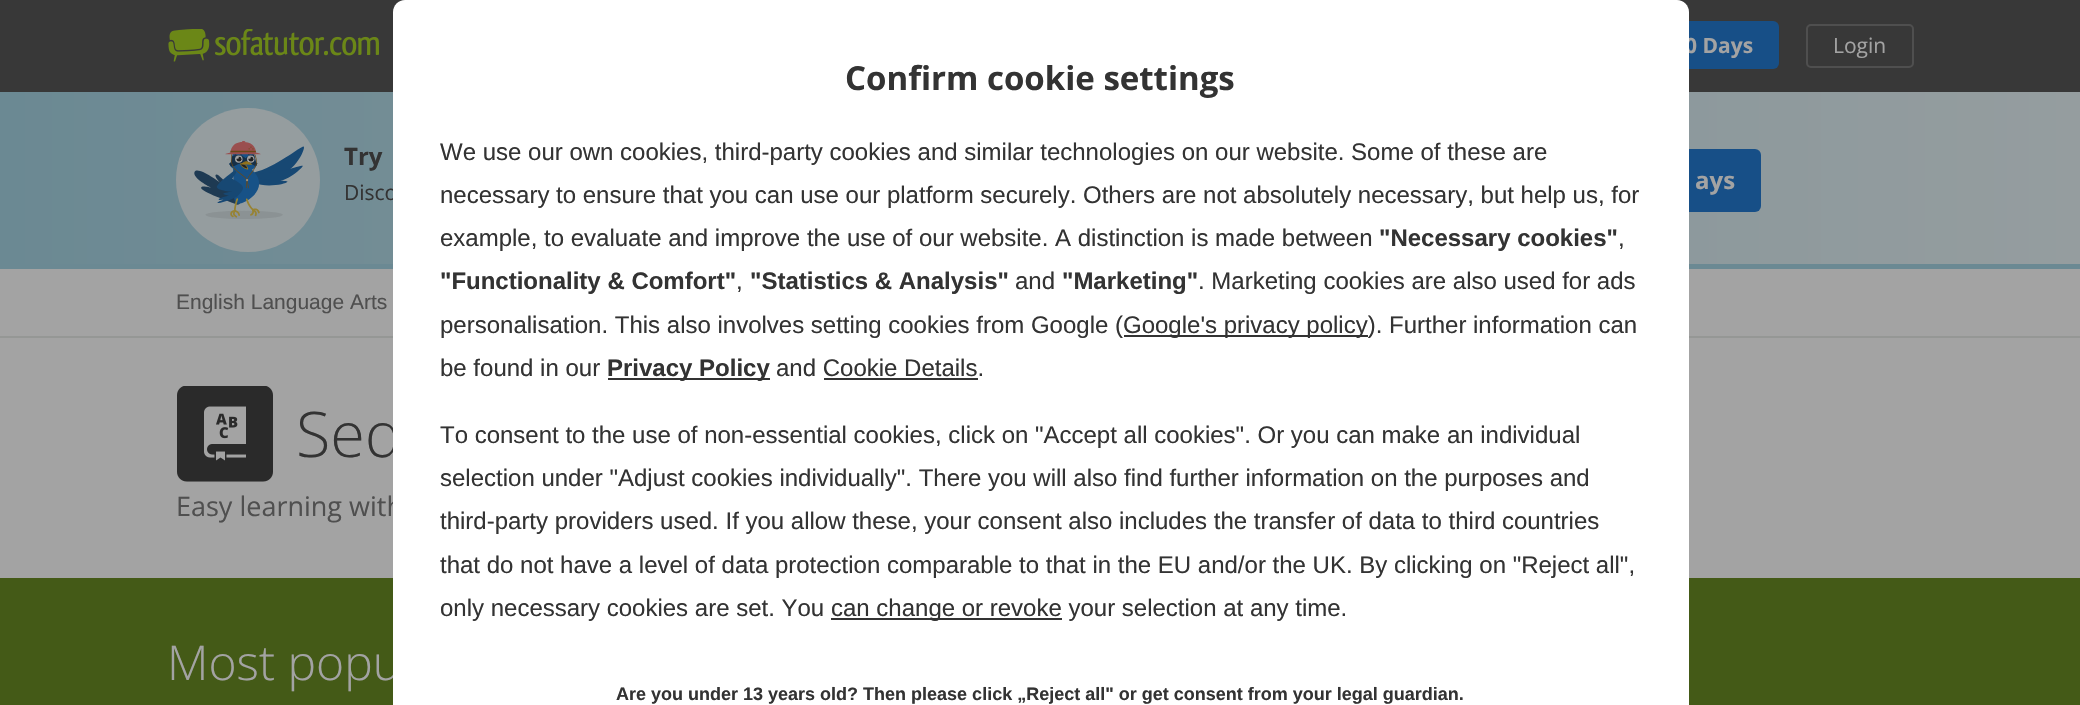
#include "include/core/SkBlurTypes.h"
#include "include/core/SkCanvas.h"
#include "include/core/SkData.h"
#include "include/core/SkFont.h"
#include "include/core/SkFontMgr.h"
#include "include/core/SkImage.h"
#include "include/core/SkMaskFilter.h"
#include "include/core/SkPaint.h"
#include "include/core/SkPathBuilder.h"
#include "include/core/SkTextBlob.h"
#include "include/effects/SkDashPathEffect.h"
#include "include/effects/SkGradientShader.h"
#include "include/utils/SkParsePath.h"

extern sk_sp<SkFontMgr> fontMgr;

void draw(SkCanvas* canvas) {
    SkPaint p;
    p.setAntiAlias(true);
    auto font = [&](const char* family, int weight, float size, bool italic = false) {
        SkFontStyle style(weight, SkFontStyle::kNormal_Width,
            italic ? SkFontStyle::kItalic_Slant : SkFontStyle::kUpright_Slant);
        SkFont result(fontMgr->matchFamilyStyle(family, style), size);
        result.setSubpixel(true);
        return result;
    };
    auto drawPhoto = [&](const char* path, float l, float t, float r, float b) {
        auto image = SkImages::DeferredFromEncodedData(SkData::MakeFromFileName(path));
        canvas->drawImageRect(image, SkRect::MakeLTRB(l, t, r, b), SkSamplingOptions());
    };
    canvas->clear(0xFFA3A3A3);
    p.setColor(0xFF383838);
    canvas->drawRect(SkRect::MakeLTRB(0, 0, 2080, 92), p);
    drawPhoto("media/1.png", 168, 29, 379, 62);
    p.setColor(0xFF174F87);
    canvas->drawRoundRect(SkRect::MakeLTRB(1469, 21, 1779, 69), 6, 6, p);
    auto font1 = font("Open Sans", 700, 21);
    p.setColor(0xFFA3A3A3);
    canvas->drawString("0 Days", 1685, 53, font1, p);
    p.setStyle(SkPaint::kStroke_Style);
    p.setStrokeWidth(2);
    p.setColor(0xFF4F4F4F);
    canvas->drawRoundRect(SkRect::MakeLTRB(1807, 25, 1913, 67), 4, 4, p);
    auto font2 = font("Open Sans", 400, 21);
    p.setStyle(SkPaint::kFill_Style);
    p.setColor(0xFFA3A3A3);
    canvas->drawString("Login", 1833, 53, font2, p);
    {
        const SkColor colors[] = {0xFF959D9F, 0xFF6B8993};
        const float stops[] = {0, 1};
        const SkPoint ends[] = {{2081, 177}, {0, 177}};
        p.setShader(SkGradientShader::MakeLinear(ends, colors, stops, 2, SkTileMode::kClamp));
        p.setAlpha(255);
    }
    canvas->drawRect(SkRect::MakeLTRB(0, 92, 2080, 264), p);
    p.setShader(nullptr);
    p.setColor(0xFF6B8993);
    canvas->drawRect(SkRect::MakeLTRB(0, 264, 2080, 269), p);
    p.setColor(0xFF333333);
    canvas->drawString("Disco", 344, 200, font2, p);
    p.setColor(0xFF174F87);
    canvas->drawRoundRect(SkRect::MakeLTRB(1509, 149, 1761, 212), 6, 6, p);
    p.setColor(0xFF959795);
    canvas->drawRect(SkRect::MakeLTRB(0, 336, 2080, 338), p);
    auto font3 = font("Open Sans", 300, 63);
    p.setColor(0xFF333333);
    canvas->drawString("Seq", 296, 457, font3, p);
    auto font4 = font("Open Sans", 400, 27);
    p.setColor(0xFF4F4F4F);
    canvas->drawString("Easy learning with", 176, 516, font4, p);
    p.setColor(0xFF445A17);
    canvas->drawRect(SkRect::MakeLTRB(0, 578, 2080, 705), p);
    auto font5 = font("Open Sans", 300, 48);
    p.setColor(0xFFA3A3A3);
    canvas->drawString("Most popu", 167, 680, font5, p);
    p.setColor(0xFFFFFFFF);
    canvas->drawPath(SkPathBuilder().moveTo(405, 0).lineTo(1677, 0).cubicTo(1683.5f, 0, 1689, 5.5f, 1689, 12).lineTo(1689, 705).lineTo(393, 705).lineTo(393, 12).cubicTo(393, 5.5f, 398.5f, 0, 405, 0).close().detach(), p);
    auto font6 = font("Open Sans", 700, 33);
    p.setColor(0xFF333333);
    canvas->drawString("Confirm cookie settings", 845, 90, font6, p);
    auto font7 = font("Liberation Sans", 400, 24);
    {
        const struct { const char* s; float x, y; } items[] = {
            {"We use our own cookies, third-party cookies and similar technologies on our website. Some of these are", 440, 160},
            {"necessary to ensure that you can use our platform securely. Others are not absolutely necessary, but help us, for", 440, 203},
            {"example, to evaluate and improve the use of our website. A distinction is made between", 440, 246},
        };
        for (auto [s, x, y] : items) {
            canvas->drawString(s, x, y, font7, p);
        }
    }
    auto font8 = font("Liberation Sans", 700, 24);
    canvas->drawString("\"Necessary cookies\"", 1379, 246, font8, p);
    canvas->drawString(",", 1618, 246, font7, p);
    canvas->drawString("\"Functionality & Comfort\"", 440, 289, font8, p);
    canvas->drawString(",", 736, 289, font7, p);
    canvas->drawString("\"Statistics & Analysis\"", 750, 289, font8, p);
    canvas->drawString("and", 1015, 289, font7, p);
    canvas->drawString("\"Marketing\"", 1062, 289, font8, p);
    canvas->drawString(". Marketing cookies are also used for ads", 1198, 289, font7, p);
    canvas->drawString("personalisation. This also involves setting cookies from Google (", 440, 333, font7, p);
    canvas->drawRect(SkRect::MakeLTRB(1124, 335, 1368, 337), p);
    canvas->drawString("Google's privacy policy). Further information can", 1123, 333, font7, p);
    canvas->drawString("be found in our", 440, 376, font7, p);
    canvas->drawRect(SkRect::MakeLTRB(608, 378, 770, 380), p);
    canvas->drawString("Privacy Policy", 607, 376, font8, p);
    canvas->drawString("and Cookie Details.", 776, 376, font7, p);
    canvas->drawRect(SkRect::MakeLTRB(824, 378, 978, 380), p);
    {
        const struct { const char* s; float x, y; } items[] = {
            {"To consent to the use of non-essential cookies, click on \"Accept all cookies\". Or you can make an individual", 440, 443},
            {"selection under \"Adjust cookies individually\". There you will also find further information on the purposes and", 440, 486},
            {"third-party providers used. If you allow these, your consent also includes the transfer of data to third countries", 440, 529},
            {"that do not have a level of data protection comparable to that in the EU and/or the UK. By clicking on \"Reject all\",", 440, 573},
            {"only necessary cookies are set. You", 440, 616},
        };
        for (auto [s, x, y] : items) {
            canvas->drawString(s, x, y, font7, p);
        }
    }
    canvas->drawRect(SkRect::MakeLTRB(831, 618, 1062, 620), p);
    canvas->drawString("can change or revoke your selection at any time.", 831, 616, font7, p);
    auto font9 = font("Liberation Sans", 700, 18);
    canvas->drawString("Are you under 13 years old? Then please click „Reject all\" or get consent from your legal guardian.", 616, 700, font9, p);
    p.setColor(0xFF959D9F);
    canvas->drawPath(SkPathBuilder().moveTo(248, 108).cubicTo(208, 108, 176, 140, 176, 180).cubicTo(176, 220, 208, 252, 248, 252).cubicTo(288, 252, 320, 220, 320, 180).cubicTo(320, 140, 288, 108, 248, 108).close().detach(), p);
    drawPhoto("media/2.png", 194, 141, 304, 219);
    auto font10 = font("Open Sans", 700, 24);
    p.setColor(0xFF333333);
    canvas->drawString("Try", 344, 165, font10, p);
    p.setColor(0xFFA3A3A3);
    canvas->drawString("ays", 1695, 189, font10, p);
    auto font11 = font("Liberation Sans", 400, 21);
    p.setColor(0xFF4F4F4F);
    canvas->drawString("English Language Arts", 176, 309, font11, p);
    drawPhoto("media/3.png", 177, 386, 273, 482);
}
